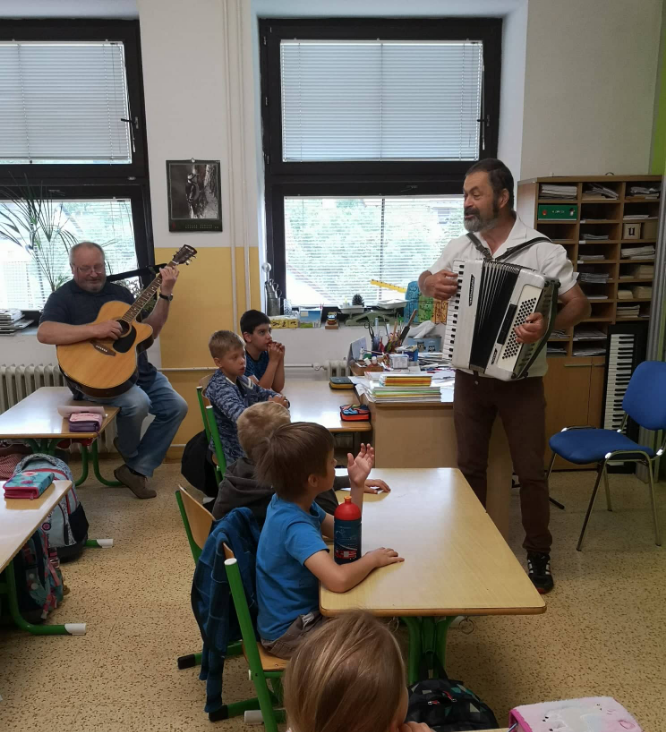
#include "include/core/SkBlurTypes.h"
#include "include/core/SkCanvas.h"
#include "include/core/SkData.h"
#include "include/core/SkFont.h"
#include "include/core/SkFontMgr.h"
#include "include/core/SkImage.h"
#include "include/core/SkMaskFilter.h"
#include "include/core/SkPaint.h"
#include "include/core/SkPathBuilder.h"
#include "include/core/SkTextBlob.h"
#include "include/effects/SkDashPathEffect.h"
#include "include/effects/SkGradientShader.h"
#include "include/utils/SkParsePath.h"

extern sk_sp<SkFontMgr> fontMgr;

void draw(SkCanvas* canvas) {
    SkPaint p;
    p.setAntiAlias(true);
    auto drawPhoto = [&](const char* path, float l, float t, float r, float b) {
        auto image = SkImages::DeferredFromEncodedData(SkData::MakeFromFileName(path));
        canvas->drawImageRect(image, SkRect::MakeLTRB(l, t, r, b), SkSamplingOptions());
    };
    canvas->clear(0xFFFFFFFF);
    drawPhoto("media/1.png", 0, 0, 666, 732);
}
